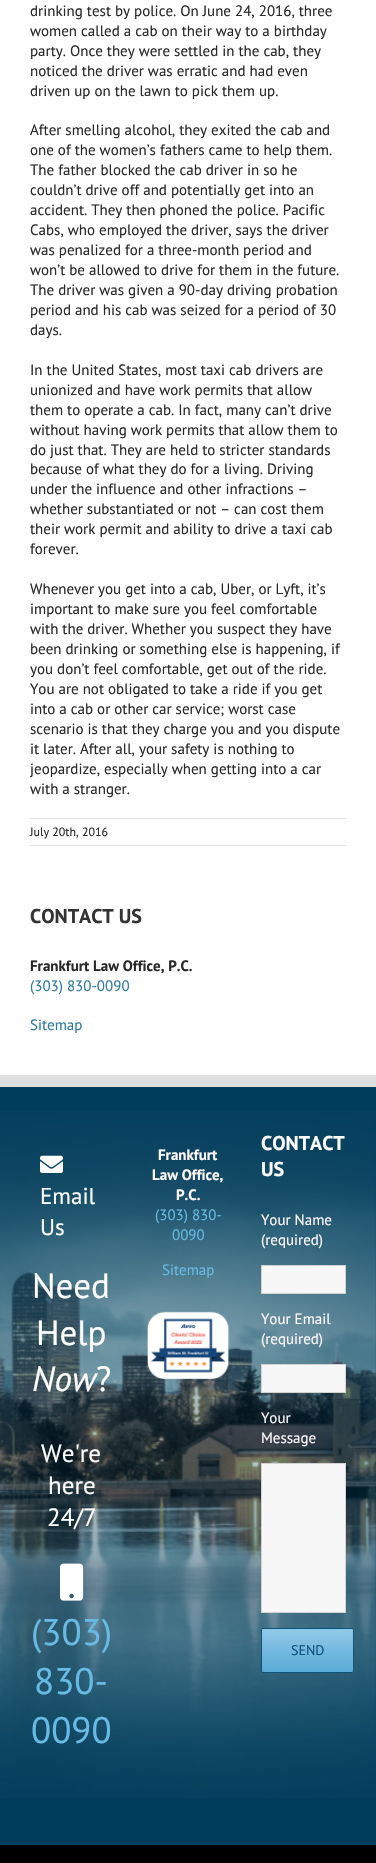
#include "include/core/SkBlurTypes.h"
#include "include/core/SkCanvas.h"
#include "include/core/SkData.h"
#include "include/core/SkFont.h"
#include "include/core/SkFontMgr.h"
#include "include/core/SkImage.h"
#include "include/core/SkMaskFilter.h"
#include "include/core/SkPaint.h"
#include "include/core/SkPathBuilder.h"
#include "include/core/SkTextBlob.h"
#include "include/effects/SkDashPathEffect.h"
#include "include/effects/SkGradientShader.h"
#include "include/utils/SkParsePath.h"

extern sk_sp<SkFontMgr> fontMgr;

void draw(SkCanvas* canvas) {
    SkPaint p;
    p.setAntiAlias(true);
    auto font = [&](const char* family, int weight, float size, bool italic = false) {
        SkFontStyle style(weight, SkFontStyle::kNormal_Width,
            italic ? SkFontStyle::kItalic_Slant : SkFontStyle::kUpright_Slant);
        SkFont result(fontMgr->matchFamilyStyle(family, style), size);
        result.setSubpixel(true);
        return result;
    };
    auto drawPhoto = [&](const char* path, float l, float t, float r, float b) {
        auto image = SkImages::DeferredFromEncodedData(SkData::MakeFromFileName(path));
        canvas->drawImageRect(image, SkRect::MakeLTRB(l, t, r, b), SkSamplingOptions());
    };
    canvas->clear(0xFFFFFFFF);
    auto font1 = font("PT Sans", 400, 15);
    p.setColor(0xFF282828);
    {
        const struct { const char* s; float x, y; } items[] = {
            {"drinking test by police. On June 24, 2016, three", 30, 16},
            {"women called a cab on their way to a birthday", 30, 36},
            {"party. Once they were settled in the cab, they", 30, 56},
            {"noticed the driver was erratic and had even", 30, 76},
            {"driven up on the lawn to pick them up.", 30, 96},
            {"After smelling alcohol, they exited the cab and", 30, 135},
            {"one of the women’s fathers came to help them.", 30, 155},
            {"The father blocked the cab driver in so he", 30, 175},
            {"couldn’t drive off and potentially get into an", 30, 195},
            {"accident. They then phoned the police. Pacific", 30, 215},
            {"Cabs, who employed the driver, says the driver", 30, 235},
            {"was penalized for a three-month period and", 30, 255},
            {"won’t be allowed to drive for them in the future.", 30, 275},
            {"The driver was given a 90-day driving probation", 30, 295},
            {"period and his cab was seized for a period of 30", 30, 315},
            {"days.", 30, 335},
            {"In the United States, most taxi cab drivers are", 30, 375},
            {"unionized and have work permits that allow", 30, 395},
            {"them to operate a cab. In fact, many can’t drive", 30, 415},
            {"without having work permits that allow them to", 30, 435},
            {"do just that. They are held to stricter standards", 30, 455},
            {"because of what they do for a living. Driving", 30, 474},
            {"under the influence and other infractions –", 30, 494},
            {"whether substantiated or not – can cost them", 30, 514},
            {"their work permit and ability to drive a taxi cab", 30, 534},
            {"forever.", 30, 554},
            {"Whenever you get into a cab, Uber, or Lyft, it’s", 30, 594},
            {"important to make sure you feel comfortable", 30, 614},
            {"with the driver. Whether you suspect they have", 30, 634},
            {"been drinking or something else is happening, if", 30, 654},
            {"you don’t feel comfortable, get out of the ride.", 30, 674},
            {"You are not obligated to take a ride if you get", 30, 694},
            {"into a cab or other car service; worst case", 30, 714},
            {"scenario is that they charge you and you dispute", 30, 734},
            {"it later. After all, your safety is nothing to", 30, 754},
            {"jeopardize, especially when getting into a car", 30, 774},
            {"with a stranger.", 30, 794},
        };
        for (auto [s, x, y] : items) {
            canvas->drawString(s, x, y, font1, p);
        }
    }
    p.setColor(0xFFE0DEDE);
    canvas->drawRect(SkRect::MakeLTRB(30, 818, 346, 819), p);
    canvas->drawRect(SkRect::MakeLTRB(30, 845, 346, 846), p);
    auto font2 = font("PT Sans", 400, 12);
    p.setColor(0xFF282828);
    canvas->drawString("July 20th, 2016", 30, 836, font2, p);
    auto font3 = font("PT Sans", 700, 20);
    p.setColor(0xFF333333);
    canvas->drawString("CONTACT US", 30, 923, font3, p);
    auto font4 = font("PT Sans", 700, 15);
    p.setColor(0xFF282828);
    canvas->drawString("Frankfurt Law Office, P.C.", 30, 971, font4, p);
    p.setColor(0xFF2C7AA0);
    canvas->drawString("(303) 830-0090", 30, 991, font1, p);
    canvas->drawString("Sitemap", 30, 1030, font1, p);
    p.setColor(0xFF003D5C);
    canvas->drawRect(SkRect::MakeLTRB(0, 1087, 376, 1845), p);
    drawPhoto("media/1.png", 0, 1111, 376, 1798);
    p.setColor(0xFFE0E0E0);
    canvas->drawRect(SkRect::MakeLTRB(0, 1075, 376, 1087), p);
    drawPhoto("media/2.png", 40, 1155, 63, 1173);
    auto font5 = font("PT Sans", 400, 23);
    p.setColor(0xFFFFFFFF);
    canvas->drawString("Email", 40, 1204, font5, p);
    canvas->drawString("Us", 40, 1235, font5, p);
    auto font6 = font("PT Sans", 400, 35);
    canvas->drawString("Need", 32, 1298, font6, p);
    canvas->drawString("Help", 36, 1345, font6, p);
    auto font7 = font("PT Sans", 400, 35, true);
    canvas->drawString("Now", 32, 1391, font7, p);
    canvas->drawString("?", 96, 1391, font6, p);
    auto font8 = font("PT Sans", 400, 25);
    {
        const struct { const char* s; float x, y; } items[] = {
            {"We're", 41, 1462},
            {"here", 48, 1494},
            {"24/7", 47, 1526},
        };
        for (auto [s, x, y] : items) {
            canvas->drawString(s, x, y, font8, p);
        }
    }
    drawPhoto("media/3.png", 60, 1563, 84, 1601);
    auto font9 = font("PT Sans", 400, 37);
    p.setColor(0xFF67BAE4);
    {
        const struct { const char* s; float x, y; } items[] = {
            {"(303)", 31, 1645},
            {"830-", 34, 1694},
            {"0090", 31, 1743},
        };
        for (auto [s, x, y] : items) {
            canvas->drawString(s, x, y, font9, p);
        }
    }
    p.setColor(0xFFFFF9FB);
    {
        const struct { const char* s; float x, y; } items[] = {
            {"Frankfurt", 158, 1160},
            {"Law Office,", 152, 1180},
            {"P.C.", 176, 1200},
        };
        for (auto [s, x, y] : items) {
            canvas->drawString(s, x, y, font4, p);
        }
    }
    p.setColor(0xFF67BAE4);
    {
        const struct { const char* s; float x, y; } items[] = {
            {"(303) 830-", 155, 1220},
            {"0090", 172, 1240},
            {"Sitemap", 162, 1275},
        };
        for (auto [s, x, y] : items) {
            canvas->drawString(s, x, y, font1, p);
        }
    }
    drawPhoto("media/4.png", 147, 1311, 230, 1380);
    p.setColor(0xFFFFFFFF);
    canvas->drawString("CONTACT", 261, 1150, font3, p);
    canvas->drawString("US", 261, 1176, font3, p);
    p.setColor(0xFFFFF9FB);
    canvas->drawString("Your Name", 261, 1225, font1, p);
    canvas->drawString("(required)", 261, 1245, font1, p);
    p.setColor(0xFFF7F7F7);
    canvas->drawRect(SkRect::MakeLTRB(261.5f, 1265.5f, 345.5f, 1293.5f), p);
    p.setStyle(SkPaint::kStroke_Style);
    p.setStrokeWidth(1);
    p.setColor(0xFFD2D2D2);
    canvas->drawRect(SkRect::MakeLTRB(261.5f, 1265.5f, 345.5f, 1293.5f), p);
    p.setStyle(SkPaint::kFill_Style);
    p.setColor(0xFFFFF9FB);
    canvas->drawString("Your Email", 261, 1324, font1, p);
    canvas->drawString("(required)", 261, 1344, font1, p);
    p.setColor(0xFFF7F7F7);
    canvas->drawRect(SkRect::MakeLTRB(261.5f, 1364.5f, 345.5f, 1392.5f), p);
    p.setStyle(SkPaint::kStroke_Style);
    p.setColor(0xFFD2D2D2);
    canvas->drawRect(SkRect::MakeLTRB(261.5f, 1364.5f, 345.5f, 1392.5f), p);
    p.setStyle(SkPaint::kFill_Style);
    p.setColor(0xFFFFF9FB);
    canvas->drawString("Your", 261, 1423, font1, p);
    canvas->drawString("Message", 261, 1443, font1, p);
    p.setColor(0xFFF7F7F7);
    canvas->drawRect(SkRect::MakeLTRB(261.5f, 1463.5f, 345.5f, 1612.5f), p);
    p.setStyle(SkPaint::kStroke_Style);
    p.setColor(0xFFD2D2D2);
    canvas->drawRect(SkRect::MakeLTRB(261.5f, 1463.5f, 345.5f, 1612.5f), p);
    canvas->save();
    canvas->clipPath(SkPathBuilder().moveTo(263, 1628).lineTo(352, 1628).cubicTo(353, 1628, 354, 1629, 354, 1630).lineTo(354, 1671).cubicTo(354, 1672, 353, 1673, 352, 1673).lineTo(263, 1673).cubicTo(262, 1673, 261, 1672, 261, 1671).lineTo(261, 1630).cubicTo(261, 1629, 262, 1628, 263, 1628).close().detach(), true);
    p.setStyle(SkPaint::kFill_Style);
    {
        const SkColor colors[] = {0xFF90C9E8, 0xFF5AABD6};
        const float stops[] = {0, 1};
        const SkPoint ends[] = {{308, 1629}, {308, 1672}};
        p.setShader(SkGradientShader::MakeLinear(ends, colors, stops, 2, SkTileMode::kClamp));
        p.setAlpha(255);
    }
    canvas->drawRect(SkRect::MakeLTRB(261, 1629, 354, 1672), p);
    canvas->restore();
    p.setStyle(SkPaint::kStroke_Style);
    p.setShader(nullptr);
    p.setColor(0xFF105378);
    canvas->drawRoundRect(SkRect::MakeLTRB(261.5f, 1628.5f, 353.5f, 1672.5f), 1.5f, 1.5f, p);
    auto font10 = font("PT Sans", 400, 14);
    p.setStyle(SkPaint::kFill_Style);
    canvas->drawString("SEND", 291, 1655, font10, p);
    p.setColor(0xFF000000);
    canvas->drawRect(SkRect::MakeLTRB(0, 1845, 376, 1863), p);
}
